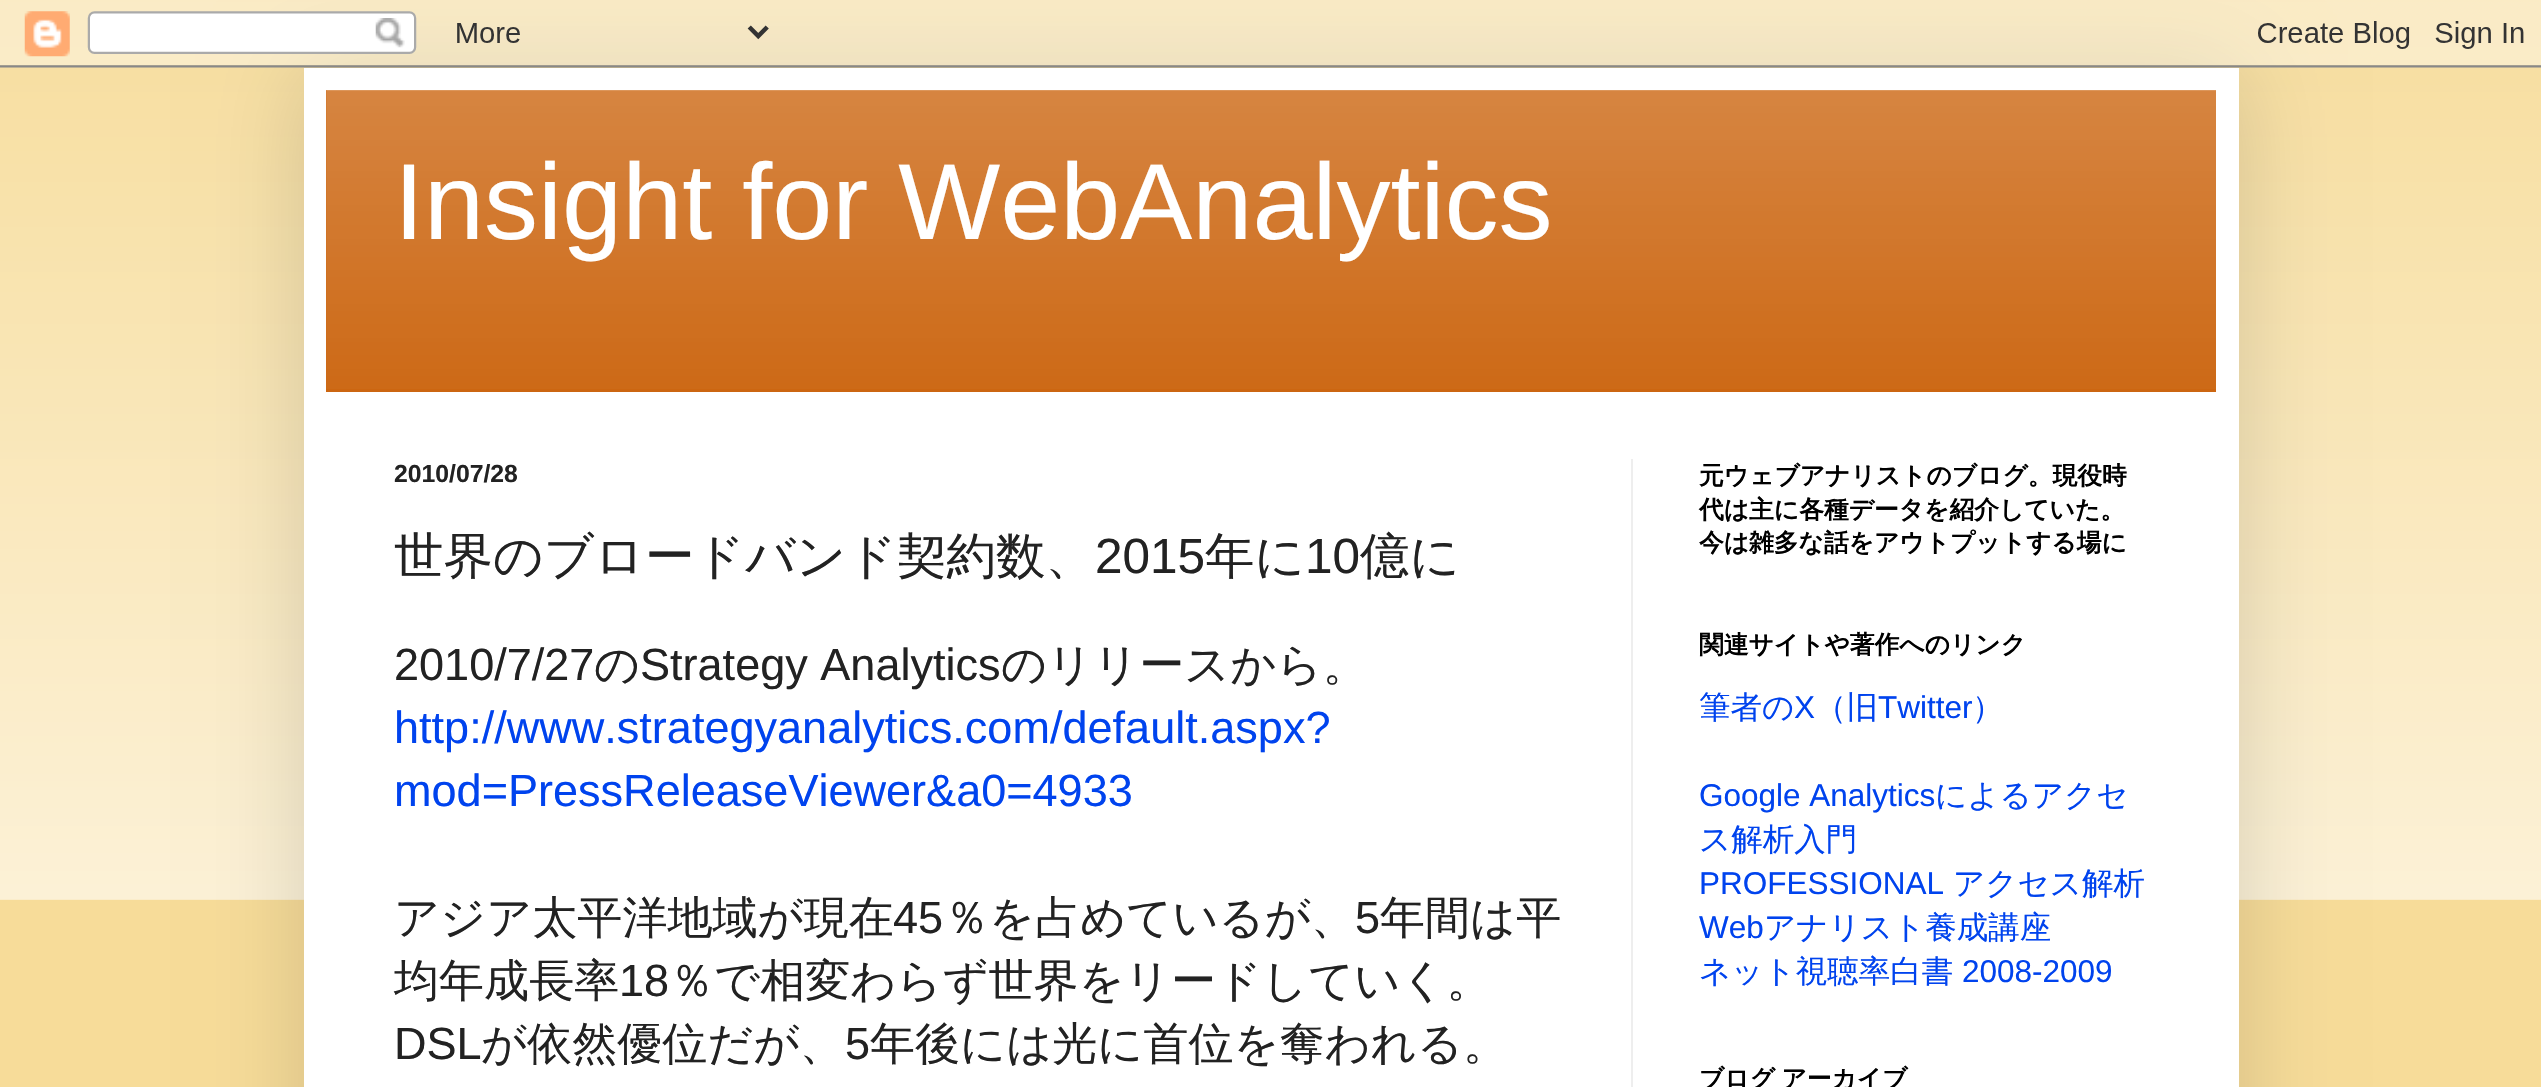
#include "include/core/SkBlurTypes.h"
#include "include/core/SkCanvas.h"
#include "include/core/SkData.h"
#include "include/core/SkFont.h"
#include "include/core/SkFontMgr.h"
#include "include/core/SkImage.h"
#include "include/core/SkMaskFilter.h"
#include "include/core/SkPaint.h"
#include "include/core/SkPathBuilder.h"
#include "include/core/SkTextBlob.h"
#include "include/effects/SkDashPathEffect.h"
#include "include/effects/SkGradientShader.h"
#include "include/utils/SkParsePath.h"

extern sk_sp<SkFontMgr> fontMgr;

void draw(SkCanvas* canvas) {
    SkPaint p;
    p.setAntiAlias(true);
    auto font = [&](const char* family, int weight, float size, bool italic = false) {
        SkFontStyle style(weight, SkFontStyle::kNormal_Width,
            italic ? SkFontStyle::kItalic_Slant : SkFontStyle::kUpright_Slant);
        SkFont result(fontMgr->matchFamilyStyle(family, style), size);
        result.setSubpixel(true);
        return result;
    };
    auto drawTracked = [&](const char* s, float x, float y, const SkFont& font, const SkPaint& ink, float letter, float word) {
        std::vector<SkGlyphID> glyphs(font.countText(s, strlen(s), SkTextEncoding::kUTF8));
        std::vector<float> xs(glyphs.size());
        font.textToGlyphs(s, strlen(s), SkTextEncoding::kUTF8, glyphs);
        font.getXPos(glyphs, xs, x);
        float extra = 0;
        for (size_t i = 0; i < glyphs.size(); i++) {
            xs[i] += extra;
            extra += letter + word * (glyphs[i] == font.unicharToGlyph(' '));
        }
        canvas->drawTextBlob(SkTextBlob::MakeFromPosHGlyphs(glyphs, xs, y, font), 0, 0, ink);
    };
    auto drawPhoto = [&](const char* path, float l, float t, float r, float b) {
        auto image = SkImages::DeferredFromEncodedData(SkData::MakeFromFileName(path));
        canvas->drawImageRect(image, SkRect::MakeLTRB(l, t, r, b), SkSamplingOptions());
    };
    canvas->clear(0xFFF7DC99);
    drawPhoto("media/1.png", 0, 0, 2541, 900);
    p.setColor(0x26000000);
    p.setMaskFilter(SkMaskFilter::MakeBlur(kNormal_SkBlurStyle, 45));
    canvas->drawRect(SkRect::MakeLTRB(304, 68, 2239, 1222), p);
    p.setMaskFilter(nullptr);
    drawPhoto("media/2.png", 0, 0, 2541, 68);
    p.setColor(0xFFFFFFFF);
    canvas->drawRect(SkRect::MakeLTRB(304, 68, 2239, 1087), p);
    p.setColor(0xFFCC6611);
    canvas->drawRect(SkRect::MakeLTRB(326, 90, 2216, 392), p);
    drawPhoto("media/3.png", 326, 90, 2216, 389);
    auto font1 = font("Liberation Sans", 400, 108);
    p.setColor(0xFFFFFFFF);
    canvas->drawString("Insight for WebAnalytics", 394, 239, font1, p);
    p.setColor(0xFFEEEEEE);
    canvas->drawRect(SkRect::MakeLTRB(1631, 459, 1633, 1087), p);
    auto font2 = font("Liberation Sans", 700, 24.75f);
    p.setColor(0xFF222222);
    canvas->drawString("2010/07/28", 394, 482, font2, p);
    auto font3 = font("WenQuanYi Zen Hei", 500, 49.5f);
    canvas->drawString("世界のブロードバンド契約数、", 394, 573, font3, p);
    auto font4 = font("Liberation Sans", 400, 49.5f);
    canvas->drawString("2015", 1095, 573, font4, p);
    canvas->drawString("年に", 1205, 573, font3, p);
    canvas->drawString("10", 1305, 573, font4, p);
    canvas->drawString("億に", 1360, 573, font3, p);
    auto font5 = font("Liberation Sans", 400, 45.05f);
    canvas->drawString("2010/7/27", 394, 680, font5, p);
    auto font6 = font("WenQuanYi Zen Hei", 500, 45.05f);
    canvas->drawString("の", 594, 680, font6, p);
    canvas->drawString("Strategy Analytics", 640, 680, font5, p);
    canvas->drawString("のリリースから。", 1001, 680, font6, p);
    p.setColor(0xFF0043EE);
    canvas->drawString("http://www.strategyanalytics.com/default.aspx?", 394, 743, font5, p);
    canvas->drawString("mod=PressReleaseViewer&a0=4933", 394, 806, font5, p);
    p.setColor(0xFF222222);
    canvas->drawString("アジア太平洋地域が現在", 394, 933, font6, p);
    canvas->drawString("45", 893, 933, font5, p);
    canvas->drawString("％を占めているが、", 944, 933, font6, p);
    canvas->drawString("5", 1355, 933, font5, p);
    canvas->drawString("年間は平", 1380, 933, font6, p);
    canvas->drawString("均年成長率", 394, 996, font6, p);
    canvas->drawString("18", 619, 996, font5, p);
    canvas->drawString("％で相変わらず世界をリードしていく。", 669, 996, font6, p);
    canvas->drawString("DSL", 394, 1059, font5, p);
    canvas->drawString("が依然優位だが、", 481, 1059, font6, p);
    canvas->drawString("5", 845, 1059, font5, p);
    canvas->drawString("年後には光に首位を奪われる。", 870, 1059, font6, p);
    auto font7 = font("WenQuanYi Zen Hei", 700, 24.75f);
    p.setColor(0xFF000000);
    {
        const struct { const char* s; float x, y; } items[] = {
            {"元ウェブアナリストのブログ。現役時", 1699, 484},
            {"代は主に各種データを紹介していた。", 1699, 518},
            {"今は雑多な話をアウトプットする場に", 1699, 551},
            {"関連サイトや著作へのリンク", 1699, 653},
        };
        for (auto [s, x, y] : items) {
            canvas->drawString(s, x, y, font7, p);
        }
    }
    auto font8 = font("WenQuanYi Zen Hei", 500, 31.5f);
    p.setColor(0xFF0043EE);
    canvas->drawString("筆者の", 1699, 718, font8, p);
    auto font9 = font("Liberation Sans", 400, 31.5f);
    canvas->drawString("X", 1794, 718, font9, p);
    canvas->drawString("（旧", 1815, 718, font8, p);
    canvas->drawString("Twitter", 1878, 718, font9, p);
    canvas->drawString("）", 1972, 718, font8, p);
    canvas->drawString("Google Analytics", 1699, 806, font9, p);
    canvas->drawString("によるアクセ", 1935, 806, font8, p);
    canvas->drawString("ス解析入門", 1699, 850, font8, p);
    canvas->drawString("PROFESSIONAL", 1699, 894, font9, p);
    canvas->drawString("アクセス解析", 1953, 894, font8, p);
    canvas->drawString("Web", 1699, 938, font9, p);
    canvas->drawString("アナリスト養成講座", 1764, 938, font8, p);
    canvas->drawString("ネット視聴率白書", 1699, 982, font8, p);
    canvas->drawString("2008-2009", 1962, 982, font9, p);
    p.setColor(0xFF000000);
    drawTracked("ブログ アーカイブ", 1699, 1087, font7, p, 0, -1);
}
